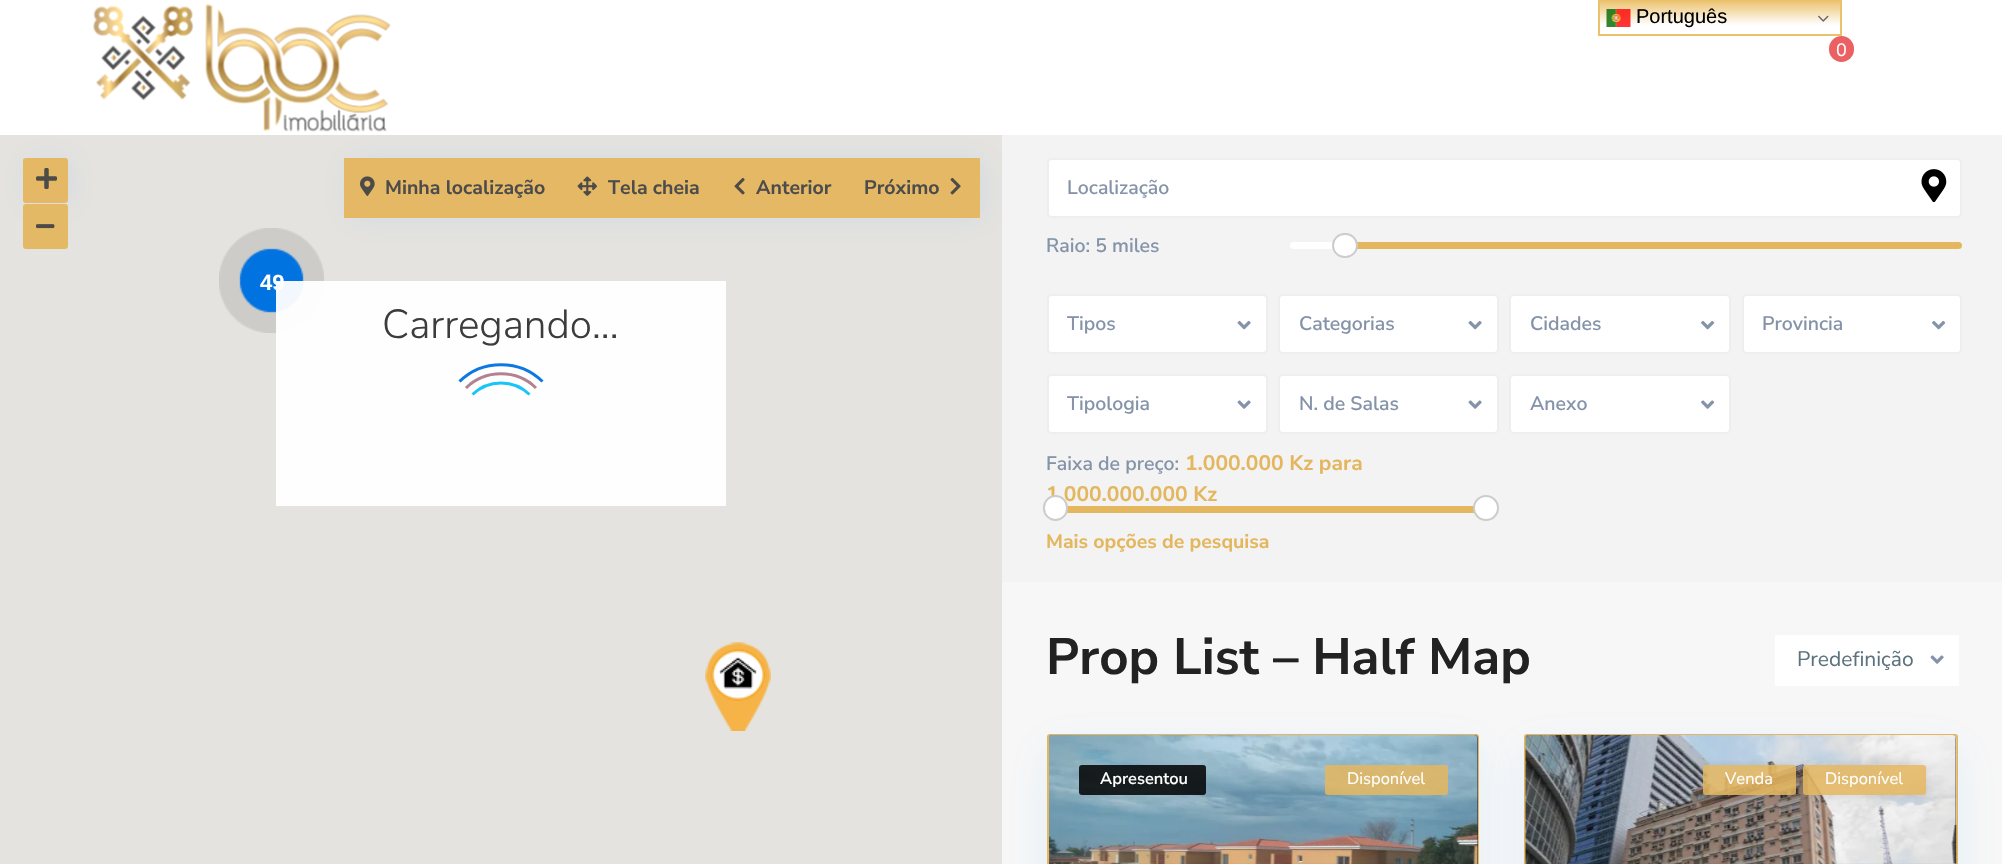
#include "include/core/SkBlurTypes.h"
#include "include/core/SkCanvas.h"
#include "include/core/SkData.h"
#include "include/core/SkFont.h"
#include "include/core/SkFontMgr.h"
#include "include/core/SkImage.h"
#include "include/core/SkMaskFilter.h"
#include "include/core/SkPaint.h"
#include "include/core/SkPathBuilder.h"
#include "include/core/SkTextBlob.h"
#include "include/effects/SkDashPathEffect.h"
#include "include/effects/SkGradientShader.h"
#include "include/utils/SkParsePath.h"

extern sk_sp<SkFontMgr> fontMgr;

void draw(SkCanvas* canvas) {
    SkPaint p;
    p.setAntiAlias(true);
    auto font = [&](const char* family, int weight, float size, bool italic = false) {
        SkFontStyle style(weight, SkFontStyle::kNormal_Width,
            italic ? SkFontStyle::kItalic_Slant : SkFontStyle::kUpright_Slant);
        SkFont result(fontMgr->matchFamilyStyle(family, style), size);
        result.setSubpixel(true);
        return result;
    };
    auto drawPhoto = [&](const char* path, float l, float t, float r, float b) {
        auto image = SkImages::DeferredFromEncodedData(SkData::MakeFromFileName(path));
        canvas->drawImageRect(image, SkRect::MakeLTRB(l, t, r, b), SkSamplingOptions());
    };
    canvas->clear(0xFFE5E3DF);
    p.setColor(0x14006EE1);
    p.setMaskFilter(SkMaskFilter::MakeBlur(kNormal_SkBlurStyle, 15));
    canvas->drawRoundRect(SkRect::MakeLTRB(27, 159, 72, 204), 3, 3, p);
    p.setMaskFilter(nullptr);
    drawPhoto("media/10.png", 219, 228, 324, 333);
    p.setMaskFilter(SkMaskFilter::MakeBlur(kNormal_SkBlurStyle, 15));
    canvas->drawRoundRect(SkRect::MakeLTRB(348, 159, 984, 219), 3, 3, p);
    p.setMaskFilter(nullptr);
    p.setColor(0xFFFFFFFF);
    canvas->drawRect(SkRect::MakeLTRB(0, 0, 2002, 135), p);
    {
        const SkColor colors[] = {0xFFEBC16B, 0xFFFFFFFF};
        const float stops[] = {0, 0.7f};
        const SkPoint ends[] = {{1720, 0}, {1720, 36}};
        p.setShader(SkGradientShader::MakeLinear(ends, colors, stops, 2, SkTileMode::kClamp));
        p.setAlpha(255);
    }
    canvas->drawRect(SkRect::MakeLTRB(1600, 2, 1840, 25), p);
    p.setStyle(SkPaint::kStroke_Style);
    p.setStrokeWidth(2);
    p.setShader(nullptr);
    p.setColor(0xFFEBC16B);
    canvas->drawRect(SkRect::MakeLTRB(1599, 1, 1841, 35), p);
    drawPhoto("media/1.png", 1606, 9, 1631, 27);
    auto font1 = font("Liberation Sans", 400, 20);
    p.setStyle(SkPaint::kFill_Style);
    p.setColor(0xFF000000);
    canvas->drawString("Português", 1636, 23, font1, p);
    drawPhoto("media/2.png", 1818, 15, 1829, 22);
    drawPhoto("media/3.png", 93, 3, 391, 132);
    p.setColor(0xFFEB6062);
    canvas->drawRoundRect(SkRect::MakeLTRB(1829, 36, 1854, 62), 12.5f, 12.5f, p);
    auto font2 = font("Nunito Sans", 400, 18);
    p.setColor(0xFFFFFFFF);
    canvas->drawString("0", 1836, 56, font2, p);
    p.setColor(0xFFE4B864);
    canvas->drawRoundRect(SkRect::MakeLTRB(23, 158, 68, 203), 3, 3, p);
    drawPhoto("media/4.png", 36, 168, 57, 189);
    canvas->drawRect(SkRect::MakeLTRB(344, 158, 980, 218), p);
    drawPhoto("media/5.png", 360, 176, 375, 196);
    auto font3 = font("Nunito Sans", 700, 19.5f);
    p.setColor(0xFF4C4C4C);
    canvas->drawString("Minha localização", 385, 194, font3, p);
    drawPhoto("media/6.png", 577, 176, 597, 196);
    canvas->drawString("Tela cheia", 608, 194, font3, p);
    drawPhoto("media/7.png", 734, 177, 745, 195);
    canvas->drawString("Anterior", 756, 194, font3, p);
    canvas->drawString("Próximo", 864, 194, font3, p);
    drawPhoto("media/8.png", 950, 177, 961, 195);
    p.setColor(0xF2E4B65E);
    canvas->drawRoundRect(SkRect::MakeLTRB(23, 204, 68, 249), 3, 3, p);
    drawPhoto("media/9.png", 36, 224, 55, 229);
    auto font4 = font("Liberation Sans", 700, 22);
    p.setColor(0xFFFFFFFF);
    canvas->drawString("49", 260, 290, font4, p);
    drawPhoto("media/11.png", 705, 642, 771, 731);
    p.setColor(0xF2FFFFFF);
    canvas->drawRect(SkRect::MakeLTRB(276, 281, 726, 506), p);
    auto font5 = font("Nunito Sans", 300, 40.5f);
    p.setColor(0xFF3C3C3C);
    canvas->drawString("Carregando...", 382, 338, font5, p);
    p.setStyle(SkPaint::kStroke_Style);
    p.setStrokeWidth(3);
    p.setColor(0xFF0B79E1);
    canvas->drawPath(SkPathBuilder().moveTo(459.5f, 381.5f).cubicTo(482, 359, 520, 359, 542.5f, 381.5f).detach(), p);
    p.setColor(0xFFB38290);
    canvas->drawPath(SkPathBuilder().moveTo(466, 388).cubicTo(485, 369, 517, 369, 536, 388).detach(), p);
    p.setColor(0xFF18C5F7);
    canvas->drawPath(SkPathBuilder().moveTo(472.5f, 394.5f).cubicTo(488, 379, 514, 379, 529.5f, 394.5f).detach(), p);
    p.setStyle(SkPaint::kFill_Style);
    p.setColor(0xFFF7F7F7);
    canvas->drawRect(SkRect::MakeLTRB(1002, 582, 2002, 864), p);
    p.setColor(0xFFF3F3F3);
    canvas->drawRect(SkRect::MakeLTRB(1002, 135, 2002, 582), p);
    p.setColor(0xFFFFFFFF);
    canvas->drawRoundRect(SkRect::MakeLTRB(1048, 159, 1961, 217), 4, 4, p);
    p.setStyle(SkPaint::kStroke_Style);
    p.setStrokeWidth(2);
    p.setColor(0xFFEEEEEE);
    canvas->drawRoundRect(SkRect::MakeLTRB(1048, 159, 1961, 217), 4, 4, p);
    auto font6 = font("Nunito Sans", 600, 19.5f);
    p.setStyle(SkPaint::kFill_Style);
    p.setColor(0xFF8593A9);
    canvas->drawString("Localização", 1067, 194, font6, p);
    drawPhoto("media/12.png", 1921, 169, 1947, 203);
    canvas->drawString("Raio: 5 miles", 1046, 252, font6, p);
    p.setColor(0xFFFFFFFF);
    canvas->drawRoundRect(SkRect::MakeLTRB(1290, 242, 1962, 249), 3.5f, 3.5f, p);
    p.setColor(0xFFE4B65E);
    canvas->drawRoundRect(SkRect::MakeLTRB(1344, 242, 1962, 249), 3.5f, 3.5f, p);
    p.setColor(0xFFFFFFFF);
    canvas->drawRoundRect(SkRect::MakeLTRB(1333, 234, 1357, 257), 11.5f, 11.5f, p);
    p.setStyle(SkPaint::kStroke_Style);
    p.setColor(0xFFCCCCCC);
    canvas->drawRoundRect(SkRect::MakeLTRB(1333, 234, 1357, 257), 11.5f, 11.5f, p);
    p.setStyle(SkPaint::kFill_Style);
    p.setColor(0xFFFFFFFF);
    canvas->drawRoundRect(SkRect::MakeLTRB(1048, 295, 1267, 353), 4, 4, p);
    p.setStyle(SkPaint::kStroke_Style);
    p.setColor(0xFFEEEEEE);
    canvas->drawRoundRect(SkRect::MakeLTRB(1048, 295, 1267, 353), 4, 4, p);
    p.setStyle(SkPaint::kFill_Style);
    p.setColor(0xFF8593A9);
    canvas->drawString("Tipos", 1067, 330, font6, p);
    drawPhoto("media/13.png", 1237, 320, 1251, 330);
    p.setColor(0xFFFFFFFF);
    canvas->drawRoundRect(SkRect::MakeLTRB(1279, 295, 1498, 353), 4, 4, p);
    p.setStyle(SkPaint::kStroke_Style);
    p.setColor(0xFFEEEEEE);
    canvas->drawRoundRect(SkRect::MakeLTRB(1279, 295, 1498, 353), 4, 4, p);
    p.setStyle(SkPaint::kFill_Style);
    p.setColor(0xFF8593A9);
    canvas->drawString("Categorias", 1299, 330, font6, p);
    drawPhoto("media/13.png", 1468, 320, 1482, 330);
    p.setColor(0xFFFFFFFF);
    canvas->drawRoundRect(SkRect::MakeLTRB(1510, 295, 1730, 353), 4, 4, p);
    p.setStyle(SkPaint::kStroke_Style);
    p.setColor(0xFFEEEEEE);
    canvas->drawRoundRect(SkRect::MakeLTRB(1510, 295, 1730, 353), 4, 4, p);
    p.setStyle(SkPaint::kFill_Style);
    p.setColor(0xFF8593A9);
    canvas->drawString("Cidades", 1530, 330, font6, p);
    drawPhoto("media/14.png", 1701, 320, 1715, 330);
    p.setColor(0xFFFFFFFF);
    canvas->drawRoundRect(SkRect::MakeLTRB(1743, 295, 1961, 353), 4, 4, p);
    p.setStyle(SkPaint::kStroke_Style);
    p.setColor(0xFFEEEEEE);
    canvas->drawRoundRect(SkRect::MakeLTRB(1743, 295, 1961, 353), 4, 4, p);
    p.setStyle(SkPaint::kFill_Style);
    p.setColor(0xFF8593A9);
    canvas->drawString("Provincia", 1762, 330, font6, p);
    drawPhoto("media/14.png", 1932, 320, 1946, 330);
    p.setColor(0xFFFFFFFF);
    canvas->drawRoundRect(SkRect::MakeLTRB(1048, 375, 1267, 433), 4, 4, p);
    p.setStyle(SkPaint::kStroke_Style);
    p.setColor(0xFFEEEEEE);
    canvas->drawRoundRect(SkRect::MakeLTRB(1048, 375, 1267, 433), 4, 4, p);
    p.setStyle(SkPaint::kFill_Style);
    p.setColor(0xFF8593A9);
    canvas->drawString("Tipologia", 1067, 410, font6, p);
    drawPhoto("media/15.png", 1237, 400, 1251, 409);
    p.setColor(0xFFFFFFFF);
    canvas->drawRoundRect(SkRect::MakeLTRB(1279, 375, 1498, 433), 4, 4, p);
    p.setStyle(SkPaint::kStroke_Style);
    p.setColor(0xFFEEEEEE);
    canvas->drawRoundRect(SkRect::MakeLTRB(1279, 375, 1498, 433), 4, 4, p);
    p.setStyle(SkPaint::kFill_Style);
    p.setColor(0xFF8593A9);
    canvas->drawString("N. de Salas", 1299, 410, font6, p);
    drawPhoto("media/15.png", 1468, 400, 1482, 409);
    p.setColor(0xFFFFFFFF);
    canvas->drawRoundRect(SkRect::MakeLTRB(1510, 375, 1730, 433), 4, 4, p);
    p.setStyle(SkPaint::kStroke_Style);
    p.setColor(0xFFEEEEEE);
    canvas->drawRoundRect(SkRect::MakeLTRB(1510, 375, 1730, 433), 4, 4, p);
    p.setStyle(SkPaint::kFill_Style);
    p.setColor(0xFF8593A9);
    canvas->drawString("Anexo", 1530, 410, font6, p);
    drawPhoto("media/16.png", 1701, 400, 1715, 409);
    canvas->drawString("Faixa de preço:", 1046, 470, font6, p);
    auto font7 = font("Nunito Sans", 700, 21);
    p.setColor(0xFFE4B65E);
    canvas->drawString("1.000.000 Kz para", 1185, 470, font7, p);
    canvas->drawString("1.000.000.000 Kz", 1046, 501, font7, p);
    canvas->drawRect(SkRect::MakeLTRB(1067, 506, 1474, 513), p);
    p.setColor(0xFFFFFFFF);
    canvas->drawRoundRect(SkRect::MakeLTRB(1044, 496, 1067, 520), 11.5f, 11.5f, p);
    p.setStyle(SkPaint::kStroke_Style);
    p.setColor(0xFFCCCCCC);
    canvas->drawRoundRect(SkRect::MakeLTRB(1044, 496, 1067, 520), 11.5f, 11.5f, p);
    p.setStyle(SkPaint::kFill_Style);
    p.setColor(0xFFFFFFFF);
    canvas->drawCircle(1486, 508, 12, p);
    p.setStyle(SkPaint::kStroke_Style);
    p.setColor(0xFFCCCCCC);
    canvas->drawCircle(1486, 508, 12, p);
    p.setStyle(SkPaint::kFill_Style);
    p.setColor(0xFFE4B65E);
    canvas->drawString("Mais opções de pesquisa", 1046, 548, font3, p);
    p.setColor(0xFFFFFFFF);
    canvas->drawRect(SkRect::MakeLTRB(1775, 635, 1959, 686), p);
    auto font8 = font("Nunito Sans", 400, 21);
    p.setColor(0xFF5C727D);
    canvas->drawString("Predefinição", 1797, 666, font8, p);
    drawPhoto("media/15.png", 1930, 655, 1944, 664);
    auto font9 = font("Nunito Sans", 700, 51);
    p.setColor(0xFF222222);
    canvas->drawString("Prop List – Half Map", 1046, 674, font9, p);
    p.setColor(0x170798FF);
    p.setMaskFilter(SkMaskFilter::MakeBlur(kNormal_SkBlurStyle, 23));
    canvas->drawRoundRect(SkRect::MakeLTRB(1047, 749, 1479, 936), 3, 3, p);
    p.setMaskFilter(nullptr);
    p.setStyle(SkPaint::kStroke_Style);
    p.setColor(0xFFE4B65E);
    canvas->drawRoundRect(SkRect::MakeLTRB(1048, 735, 1478, 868), 2, 2, p);
    p.setStyle(SkPaint::kFill_Style);
    p.setColor(0xFF222222);
    canvas->drawPath(SkPathBuilder().moveTo(1052, 735).lineTo(1475, 735).cubicTo(1476.5f, 735, 1478, 736.5f, 1478, 738).lineTo(1478, 864).lineTo(1049, 864).lineTo(1049, 738).cubicTo(1049, 736.5f, 1050.5f, 735, 1052, 735).close().detach(), p);
    drawPhoto("media/17.png", 1049, 735, 1478, 864);
    p.setColor(0xD9000000);
    canvas->drawRoundRect(SkRect::MakeLTRB(1079, 765, 1206, 795), 3, 3, p);
    auto font10 = font("Nunito Sans", 600, 16.5f);
    p.setColor(0xFFFFFFFF);
    canvas->drawString("Apresentou", 1100, 784, font10, p);
    p.setColor(0xD9E4B65E);
    canvas->drawRoundRect(SkRect::MakeLTRB(1325, 765, 1448, 795), 3, 3, p);
    auto font11 = font("Nunito Sans", 400, 16.5f);
    p.setColor(0xFFFFFFFF);
    canvas->drawString("Disponível", 1347, 784, font11, p);
    p.setColor(0x170798FF);
    p.setMaskFilter(SkMaskFilter::MakeBlur(kNormal_SkBlurStyle, 23));
    canvas->drawRoundRect(SkRect::MakeLTRB(1524, 749, 1958, 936), 3, 3, p);
    p.setMaskFilter(nullptr);
    {
        const SkColor colors[] = {0x57000000, 0x00000000};
        const float stops[] = {0, 0.56f};
        const SkPoint ends[] = {{1263, 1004}, {1263, 735}};
        p.setShader(SkGradientShader::MakeLinear(ends, colors, stops, 2, SkTileMode::kClamp));
        p.setAlpha(255);
    }
    canvas->drawRect(SkRect::MakeLTRB(1070, 863, 1478, 864), p);
    p.setStyle(SkPaint::kStroke_Style);
    p.setShader(nullptr);
    p.setColor(0xFFE4B65E);
    canvas->drawRoundRect(SkRect::MakeLTRB(1525, 735, 1957, 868), 2, 2, p);
    p.setStyle(SkPaint::kFill_Style);
    p.setColor(0xFF222222);
    canvas->drawPath(SkPathBuilder().moveTo(1529, 735).lineTo(1953, 735).cubicTo(1954.5f, 735, 1956, 736.5f, 1956, 738).lineTo(1956, 864).lineTo(1526, 864).lineTo(1526, 738).cubicTo(1526, 736.5f, 1527.5f, 735, 1529, 735).close().detach(), p);
    drawPhoto("media/18.png", 1525, 735, 1957, 864);
    canvas->save();
    canvas->clipPath(SkPathBuilder(SkPathFillType::kEvenOdd).moveTo(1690, 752).lineTo(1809, 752).lineTo(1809, 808).lineTo(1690, 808).close().moveTo(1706, 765).lineTo(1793, 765).cubicTo(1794.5f, 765, 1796, 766.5f, 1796, 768).lineTo(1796, 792).cubicTo(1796, 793.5f, 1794.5f, 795, 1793, 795).lineTo(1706, 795).cubicTo(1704.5f, 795, 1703, 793.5f, 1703, 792).lineTo(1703, 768).cubicTo(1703, 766.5f, 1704.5f, 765, 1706, 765).close().detach(), true);
    p.setColor(0x1A000000);
    p.setMaskFilter(SkMaskFilter::MakeBlur(kNormal_SkBlurStyle, 4));
    canvas->drawRoundRect(SkRect::MakeLTRB(1703, 765, 1796, 795), 3, 3, p);
    p.setMaskFilter(nullptr);
    canvas->restore();
    p.setColor(0xD9E4B65E);
    canvas->drawRoundRect(SkRect::MakeLTRB(1703, 765, 1796, 795), 3, 3, p);
    p.setColor(0xFFFFFFFF);
    canvas->drawString("Venda", 1725, 784, font11, p);
    canvas->save();
    canvas->clipPath(SkPathBuilder(SkPathFillType::kEvenOdd).moveTo(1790, 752).lineTo(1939, 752).lineTo(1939, 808).lineTo(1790, 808).close().moveTo(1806, 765).lineTo(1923, 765).cubicTo(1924.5f, 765, 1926, 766.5f, 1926, 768).lineTo(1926, 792).cubicTo(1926, 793.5f, 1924.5f, 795, 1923, 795).lineTo(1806, 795).cubicTo(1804.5f, 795, 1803, 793.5f, 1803, 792).lineTo(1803, 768).cubicTo(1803, 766.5f, 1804.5f, 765, 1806, 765).close().detach(), true);
    p.setColor(0x1A000000);
    p.setMaskFilter(SkMaskFilter::MakeBlur(kNormal_SkBlurStyle, 4));
    canvas->drawRoundRect(SkRect::MakeLTRB(1803, 765, 1926, 795), 3, 3, p);
    p.setMaskFilter(nullptr);
    canvas->restore();
    p.setColor(0xD9E4B65E);
    canvas->drawRoundRect(SkRect::MakeLTRB(1803, 765, 1926, 795), 3, 3, p);
    p.setColor(0xFFFFFFFF);
    canvas->drawString("Disponível", 1825, 784, font11, p);
    {
        const SkColor colors[] = {0x57000000, 0x00000000};
        const float stops[] = {0, 0.56f};
        const SkPoint ends[] = {{1741, 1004}, {1741, 735}};
        p.setShader(SkGradientShader::MakeLinear(ends, colors, stops, 2, SkTileMode::kClamp));
        p.setAlpha(255);
    }
    canvas->drawRect(SkRect::MakeLTRB(1548, 863, 1956, 864), p);
}
